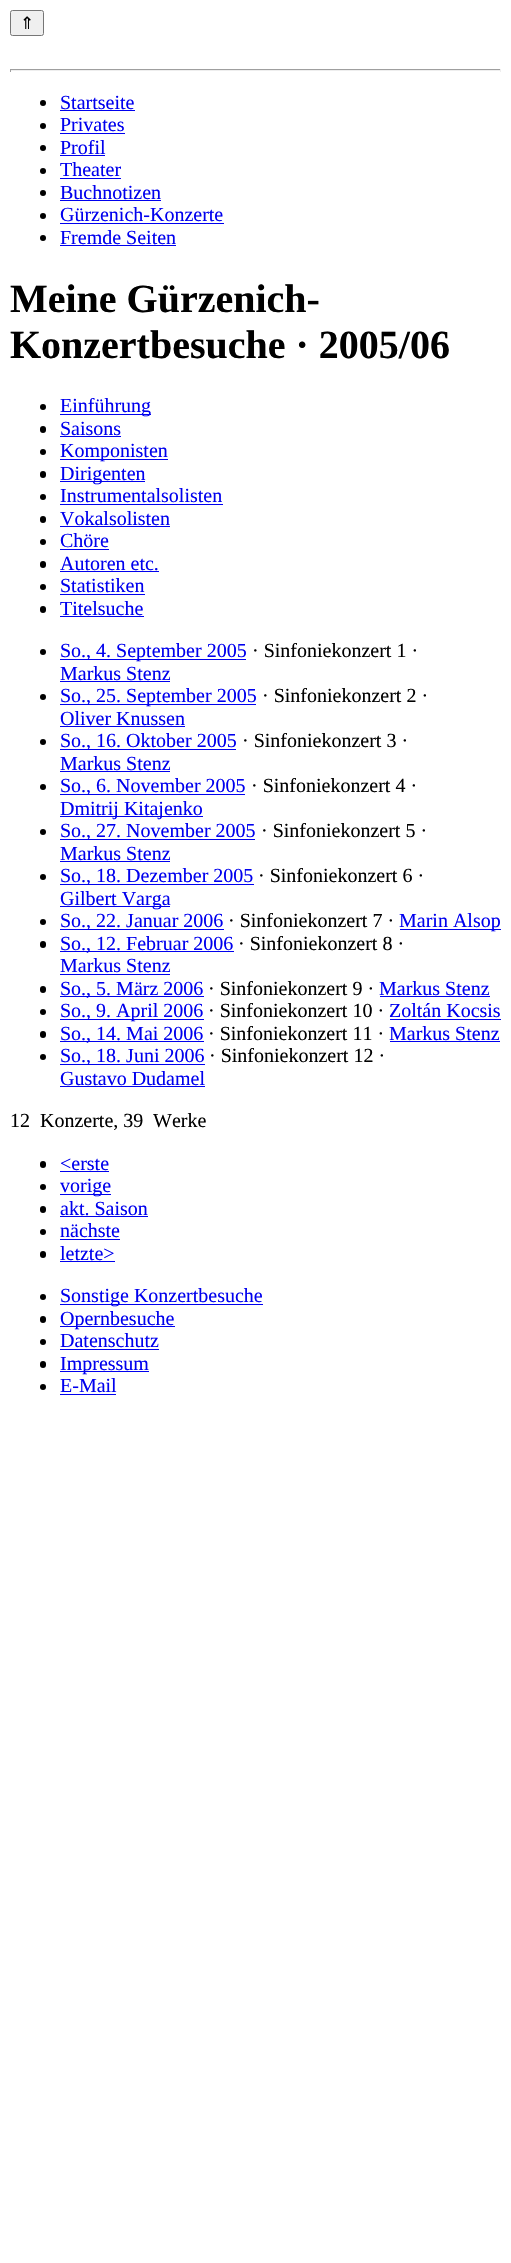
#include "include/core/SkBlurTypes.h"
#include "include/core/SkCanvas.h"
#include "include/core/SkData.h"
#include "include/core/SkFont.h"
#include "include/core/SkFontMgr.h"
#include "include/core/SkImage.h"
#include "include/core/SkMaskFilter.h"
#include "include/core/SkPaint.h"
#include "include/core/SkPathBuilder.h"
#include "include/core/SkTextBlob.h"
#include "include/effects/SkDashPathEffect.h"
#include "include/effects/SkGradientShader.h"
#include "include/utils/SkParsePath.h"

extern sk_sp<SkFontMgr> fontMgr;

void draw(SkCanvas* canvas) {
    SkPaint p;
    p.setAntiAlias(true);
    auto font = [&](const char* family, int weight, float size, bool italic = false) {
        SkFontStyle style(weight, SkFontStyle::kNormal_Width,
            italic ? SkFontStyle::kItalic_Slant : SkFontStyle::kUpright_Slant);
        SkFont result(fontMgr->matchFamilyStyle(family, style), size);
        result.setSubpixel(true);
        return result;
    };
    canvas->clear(0xFFFFFFFF);
    p.setColor(0xFFEFEFEF);
    canvas->drawRoundRect(SkRect::MakeLTRB(10.5f, 10.5f, 43.5f, 35.5f), 2, 2, p);
    p.setStyle(SkPaint::kStroke_Style);
    p.setStrokeWidth(1);
    p.setColor(0xFF767676);
    canvas->drawRoundRect(SkRect::MakeLTRB(10.5f, 10.5f, 43.5f, 35.5f), 2, 2, p);
    auto font1 = font("DejaVu Sans", 400, 17);
    p.setStyle(SkPaint::kFill_Style);
    p.setColor(0xFF000000);
    canvas->drawString("⇑", 20, 29, font1, p);
    {
        const struct { float l, t, r, b; SkColor color; } items[] = {
            {10, 69, 501, 70, 0xFF9F9F9F},
            {500, 69, 501, 72, 0xFFEEEEEE},
            {10, 70, 501, 71, 0xFFEEEEEE},
            {10, 69, 11, 72, 0xFF9F9F9F},
        };
        for (auto [l, t, r, b, color] : items) {
            p.setColor(color);
            canvas->drawRect(SkRect::MakeLTRB(l, t, r, b), p);
        }
    }
    p.setColor(0xFF000000);
    canvas->drawCircle(43, 103, 3, p);
    auto font2 = font("Liberation Serif", 400, 20);
    p.setColor(0xFF0000EE);
    canvas->drawString("Startseite", 60, 109, font2, p);
    canvas->drawRect(SkRect::MakeLTRB(60, 110, 135, 111), p);
    p.setColor(0xFF000000);
    canvas->drawCircle(43, 126, 3, p);
    p.setColor(0xFF0000EE);
    canvas->drawString("Privates", 60, 131, font2, p);
    canvas->drawRect(SkRect::MakeLTRB(60, 133, 125, 134), p);
    p.setColor(0xFF000000);
    canvas->drawCircle(43, 148, 3, p);
    p.setColor(0xFF0000EE);
    canvas->drawString("Profil", 60, 154, font2, p);
    canvas->drawRect(SkRect::MakeLTRB(60, 155, 105, 156), p);
    p.setColor(0xFF000000);
    canvas->drawCircle(43, 171, 3, p);
    p.setColor(0xFF0000EE);
    canvas->drawString("Theater", 60, 176, font2, p);
    canvas->drawRect(SkRect::MakeLTRB(60, 178, 121, 179), p);
    p.setColor(0xFF000000);
    canvas->drawCircle(43, 193, 3, p);
    p.setColor(0xFF0000EE);
    canvas->drawString("Buchnotizen", 60, 199, font2, p);
    canvas->drawRect(SkRect::MakeLTRB(60, 200, 161, 201), p);
    p.setColor(0xFF000000);
    canvas->drawCircle(43, 216, 3, p);
    p.setColor(0xFF0000EE);
    canvas->drawString("Gürzenich-Konzerte", 60, 221, font2, p);
    canvas->drawRect(SkRect::MakeLTRB(60, 223, 224, 224), p);
    p.setColor(0xFF000000);
    canvas->drawCircle(43, 238, 3, p);
    p.setColor(0xFF0000EE);
    canvas->drawString("Fremde Seiten", 60, 244, font2, p);
    canvas->drawRect(SkRect::MakeLTRB(60, 245, 176, 246), p);
    auto font3 = font("Liberation Serif", 700, 40);
    p.setColor(0xFF000000);
    canvas->drawString("Meine Gürzenich-", 10, 312, font3, p);
    canvas->drawString("Konzertbesuche · 2005/06", 10, 358, font3, p);
    canvas->drawCircle(43, 407, 3, p);
    p.setColor(0xFF0000EE);
    canvas->drawRect(SkRect::MakeLTRB(60, 414, 151, 415), p);
    canvas->drawString("Einführung", 60, 412, font2, p);
    p.setColor(0xFF000000);
    canvas->drawRoundRect(SkRect::MakeLTRB(40, 426, 46, 433), 3, 3, p);
    p.setColor(0xFF0000EE);
    canvas->drawString("Saisons", 60, 435, font2, p);
    canvas->drawRect(SkRect::MakeLTRB(60, 436, 121, 437), p);
    p.setColor(0xFF000000);
    canvas->drawCircle(43, 452, 3, p);
    p.setColor(0xFF0000EE);
    canvas->drawRect(SkRect::MakeLTRB(60, 459, 168, 460), p);
    canvas->drawString("Komponisten", 60, 457, font2, p);
    p.setColor(0xFF000000);
    canvas->drawRoundRect(SkRect::MakeLTRB(40, 471, 46, 478), 3, 3, p);
    p.setColor(0xFF0000EE);
    canvas->drawRect(SkRect::MakeLTRB(60, 481, 145, 482), p);
    canvas->drawString("Dirigenten", 60, 480, font2, p);
    p.setColor(0xFF000000);
    canvas->drawCircle(43, 497, 3, p);
    p.setColor(0xFF0000EE);
    canvas->drawString("Instrumentalsolisten", 60, 502, font2, p);
    canvas->drawRect(SkRect::MakeLTRB(60, 504, 223, 505), p);
    p.setColor(0xFF000000);
    canvas->drawRoundRect(SkRect::MakeLTRB(40, 516, 46, 523), 3, 3, p);
    p.setColor(0xFF0000EE);
    canvas->drawString("Vokalsolisten", 60, 525, font2, p);
    canvas->drawRect(SkRect::MakeLTRB(60, 526, 170, 527), p);
    p.setColor(0xFF000000);
    canvas->drawCircle(43, 542, 3, p);
    p.setColor(0xFF0000EE);
    canvas->drawString("Chöre", 60, 547, font2, p);
    canvas->drawRect(SkRect::MakeLTRB(60, 549, 109, 550), p);
    p.setColor(0xFF000000);
    canvas->drawRoundRect(SkRect::MakeLTRB(40, 561, 46, 568), 3, 3, p);
    p.setColor(0xFF0000EE);
    canvas->drawString("Autoren etc.", 60, 570, font2, p);
    canvas->drawRect(SkRect::MakeLTRB(60, 571, 159, 572), p);
    p.setColor(0xFF000000);
    canvas->drawCircle(43, 587, 3, p);
    p.setColor(0xFF0000EE);
    canvas->drawString("Statistiken", 60, 592, font2, p);
    canvas->drawRect(SkRect::MakeLTRB(60, 594, 145, 595), p);
    p.setColor(0xFF000000);
    canvas->drawRoundRect(SkRect::MakeLTRB(40, 606, 46, 613), 3, 3, p);
    p.setColor(0xFF0000EE);
    canvas->drawString("Titelsuche", 60, 615, font2, p);
    canvas->drawRect(SkRect::MakeLTRB(60, 616, 144, 617), p);
    p.setColor(0xFF000000);
    canvas->drawCircle(43, 652, 3, p);
    p.setColor(0xFF0000EE);
    canvas->drawRect(SkRect::MakeLTRB(60, 659, 246, 660), p);
    canvas->drawString("So., 4. September 2005", 60, 657, font2, p);
    p.setColor(0xFF000000);
    canvas->drawString("· Sinfoniekonzert 1 ·", 252, 657, font2, p);
    p.setColor(0xFF0000EE);
    canvas->drawString("Markus Stenz", 60, 680, font2, p);
    canvas->drawRect(SkRect::MakeLTRB(60, 681, 170, 682), p);
    p.setColor(0xFF000000);
    canvas->drawCircle(43, 697, 3, p);
    p.setColor(0xFF0000EE);
    canvas->drawRect(SkRect::MakeLTRB(60, 704, 256, 705), p);
    canvas->drawString("So., 25. September 2005", 60, 702, font2, p);
    p.setColor(0xFF000000);
    canvas->drawString("· Sinfoniekonzert 2 ·", 262, 702, font2, p);
    p.setColor(0xFF0000EE);
    canvas->drawString("Oliver Knussen", 60, 725, font2, p);
    canvas->drawRect(SkRect::MakeLTRB(60, 726, 185, 727), p);
    p.setColor(0xFF000000);
    canvas->drawCircle(43, 742, 3, p);
    p.setColor(0xFF0000EE);
    canvas->drawRect(SkRect::MakeLTRB(60, 749, 236, 750), p);
    canvas->drawString("So., 16. Oktober 2005", 60, 747, font2, p);
    p.setColor(0xFF000000);
    canvas->drawString("· Sinfoniekonzert 3 ·", 242, 747, font2, p);
    p.setColor(0xFF0000EE);
    canvas->drawString("Markus Stenz", 60, 770, font2, p);
    canvas->drawRect(SkRect::MakeLTRB(60, 771, 170, 772), p);
    p.setColor(0xFF000000);
    canvas->drawCircle(43, 787, 3, p);
    p.setColor(0xFF0000EE);
    canvas->drawRect(SkRect::MakeLTRB(60, 794, 245, 795), p);
    canvas->drawString("So., 6. November 2005", 60, 792, font2, p);
    p.setColor(0xFF000000);
    canvas->drawString("· Sinfoniekonzert 4 ·", 251, 792, font2, p);
    p.setColor(0xFF0000EE);
    canvas->drawRect(SkRect::MakeLTRB(60, 816, 203, 817), p);
    canvas->drawString("Dmitrij Kitajenko", 60, 815, font2, p);
    p.setColor(0xFF000000);
    canvas->drawCircle(43, 832, 3, p);
    p.setColor(0xFF0000EE);
    canvas->drawRect(SkRect::MakeLTRB(60, 839, 255, 840), p);
    canvas->drawString("So., 27. November 2005", 60, 837, font2, p);
    p.setColor(0xFF000000);
    canvas->drawString("· Sinfoniekonzert 5 ·", 261, 837, font2, p);
    p.setColor(0xFF0000EE);
    canvas->drawString("Markus Stenz", 60, 860, font2, p);
    canvas->drawRect(SkRect::MakeLTRB(60, 861, 170, 862), p);
    p.setColor(0xFF000000);
    canvas->drawCircle(43, 877, 3, p);
    p.setColor(0xFF0000EE);
    canvas->drawRect(SkRect::MakeLTRB(60, 884, 254, 885), p);
    canvas->drawString("So., 18. Dezember 2005", 60, 882, font2, p);
    p.setColor(0xFF000000);
    canvas->drawString("· Sinfoniekonzert 6 ·", 258, 882, font2, p);
    p.setColor(0xFF0000EE);
    canvas->drawRect(SkRect::MakeLTRB(60, 906, 170, 907), p);
    canvas->drawString("Gilbert Varga", 60, 905, font2, p);
    p.setColor(0xFF000000);
    canvas->drawCircle(43, 922, 3, p);
    p.setColor(0xFF0000EE);
    canvas->drawRect(SkRect::MakeLTRB(60, 929, 224, 930), p);
    canvas->drawString("So., 22. Januar 2006", 60, 927, font2, p);
    p.setColor(0xFF000000);
    canvas->drawString("· Sinfoniekonzert 7 ·", 228, 927, font2, p);
    p.setColor(0xFF0000EE);
    canvas->drawRect(SkRect::MakeLTRB(400, 929, 501, 930), p);
    canvas->drawString("Marin Alsop", 399, 927, font2, p);
    p.setColor(0xFF000000);
    canvas->drawRoundRect(SkRect::MakeLTRB(40, 941, 46, 948), 3, 3, p);
    p.setColor(0xFF0000EE);
    canvas->drawRect(SkRect::MakeLTRB(60, 951, 234, 952), p);
    canvas->drawString("So., 12. Februar 2006", 60, 950, font2, p);
    p.setColor(0xFF000000);
    canvas->drawString("· Sinfoniekonzert 8 ·", 238, 950, font2, p);
    p.setColor(0xFF0000EE);
    canvas->drawString("Markus Stenz", 60, 972, font2, p);
    canvas->drawRect(SkRect::MakeLTRB(60, 974, 170, 975), p);
    p.setColor(0xFF000000);
    canvas->drawRoundRect(SkRect::MakeLTRB(40, 986, 46, 993), 3, 3, p);
    p.setColor(0xFF0000EE);
    canvas->drawRect(SkRect::MakeLTRB(60, 996, 204, 997), p);
    canvas->drawString("So., 5. März 2006", 60, 995, font2, p);
    p.setColor(0xFF000000);
    canvas->drawString("· Sinfoniekonzert 9 ·", 208, 995, font2, p);
    p.setColor(0xFF0000EE);
    canvas->drawString("Markus Stenz", 379, 995, font2, p);
    canvas->drawRect(SkRect::MakeLTRB(380, 996, 490, 997), p);
    p.setColor(0xFF000000);
    canvas->drawCircle(43, 1012, 3, p);
    p.setColor(0xFF0000EE);
    canvas->drawRect(SkRect::MakeLTRB(60, 1019, 204, 1020), p);
    canvas->drawString("So., 9. April 2006", 60, 1017, font2, p);
    p.setColor(0xFF000000);
    canvas->drawString("· Sinfoniekonzert 10 ·", 208, 1017, font2, p);
    p.setColor(0xFF0000EE);
    canvas->drawString("Zoltán Kocsis", 389, 1017, font2, p);
    canvas->drawRect(SkRect::MakeLTRB(390, 1019, 501, 1020), p);
    p.setColor(0xFF000000);
    canvas->drawRoundRect(SkRect::MakeLTRB(40, 1031, 46, 1038), 3, 3, p);
    p.setColor(0xFF0000EE);
    canvas->drawRect(SkRect::MakeLTRB(60, 1041, 204, 1042), p);
    canvas->drawString("So., 14. Mai 2006", 60, 1040, font2, p);
    p.setColor(0xFF000000);
    canvas->drawString("· Sinfoniekonzert 11 ·", 208, 1040, font2, p);
    p.setColor(0xFF0000EE);
    canvas->drawString("Markus Stenz", 389, 1040, font2, p);
    canvas->drawRect(SkRect::MakeLTRB(390, 1041, 500, 1042), p);
    p.setColor(0xFF000000);
    canvas->drawCircle(43, 1057, 3, p);
    p.setColor(0xFF0000EE);
    canvas->drawRect(SkRect::MakeLTRB(60, 1064, 205, 1065), p);
    canvas->drawString("So., 18. Juni 2006", 60, 1062, font2, p);
    p.setColor(0xFF000000);
    canvas->drawString("· Sinfoniekonzert 12 ·", 209, 1062, font2, p);
    p.setColor(0xFF0000EE);
    canvas->drawString("Gustavo Dudamel", 60, 1085, font2, p);
    canvas->drawRect(SkRect::MakeLTRB(60, 1086, 205, 1087), p);
    p.setColor(0xFF000000);
    {
        const struct { const char* s; float x, y; } items[] = {
            {"12", 10, 1127},
            {"Konzerte, 39", 40, 1127},
            {"Werke", 153, 1127},
        };
        for (auto [s, x, y] : items) {
            canvas->drawString(s, x, y, font2, p);
        }
    }
    canvas->drawRoundRect(SkRect::MakeLTRB(40, 1161, 46, 1168), 3, 3, p);
    p.setColor(0xFF0000EE);
    canvas->drawString("<erste", 60, 1170, font2, p);
    canvas->drawRect(SkRect::MakeLTRB(60, 1171, 109, 1172), p);
    p.setColor(0xFF000000);
    canvas->drawCircle(43, 1187, 3, p);
    p.setColor(0xFF0000EE);
    canvas->drawRect(SkRect::MakeLTRB(60, 1194, 111, 1195), p);
    canvas->drawString("vorige", 60, 1192, font2, p);
    p.setColor(0xFF000000);
    canvas->drawRoundRect(SkRect::MakeLTRB(40, 1206, 46, 1213), 3, 3, p);
    p.setColor(0xFF0000EE);
    canvas->drawString("akt. Saison", 60, 1215, font2, p);
    canvas->drawRect(SkRect::MakeLTRB(60, 1216, 148, 1217), p);
    p.setColor(0xFF000000);
    canvas->drawCircle(43, 1232, 3, p);
    p.setColor(0xFF0000EE);
    canvas->drawString("nächste", 60, 1237, font2, p);
    canvas->drawRect(SkRect::MakeLTRB(60, 1239, 120, 1240), p);
    p.setColor(0xFF000000);
    canvas->drawRoundRect(SkRect::MakeLTRB(40, 1251, 46, 1258), 3, 3, p);
    p.setColor(0xFF0000EE);
    canvas->drawString("letzte>", 60, 1260, font2, p);
    canvas->drawRect(SkRect::MakeLTRB(60, 1261, 115, 1262), p);
    p.setColor(0xFF000000);
    canvas->drawCircle(43, 1297, 3, p);
    p.setColor(0xFF0000EE);
    canvas->drawRect(SkRect::MakeLTRB(60, 1304, 263, 1305), p);
    canvas->drawString("Sonstige Konzertbesuche", 60, 1302, font2, p);
    p.setColor(0xFF000000);
    canvas->drawRoundRect(SkRect::MakeLTRB(40, 1316, 46, 1323), 3, 3, p);
    p.setColor(0xFF0000EE);
    canvas->drawRect(SkRect::MakeLTRB(60, 1326, 175, 1327), p);
    canvas->drawString("Opernbesuche", 60, 1325, font2, p);
    p.setColor(0xFF000000);
    canvas->drawCircle(43, 1342, 3, p);
    p.setColor(0xFF0000EE);
    canvas->drawString("Datenschutz", 60, 1347, font2, p);
    canvas->drawRect(SkRect::MakeLTRB(60, 1349, 159, 1350), p);
    p.setColor(0xFF000000);
    canvas->drawRoundRect(SkRect::MakeLTRB(40, 1361, 46, 1368), 3, 3, p);
    p.setColor(0xFF0000EE);
    canvas->drawRect(SkRect::MakeLTRB(60, 1371, 149, 1372), p);
    canvas->drawString("Impressum", 60, 1370, font2, p);
    p.setColor(0xFF000000);
    canvas->drawCircle(43, 1387, 3, p);
    p.setColor(0xFF0000EE);
    canvas->drawString("E-Mail", 60, 1392, font2, p);
    canvas->drawRect(SkRect::MakeLTRB(60, 1394, 116, 1395), p);
}
